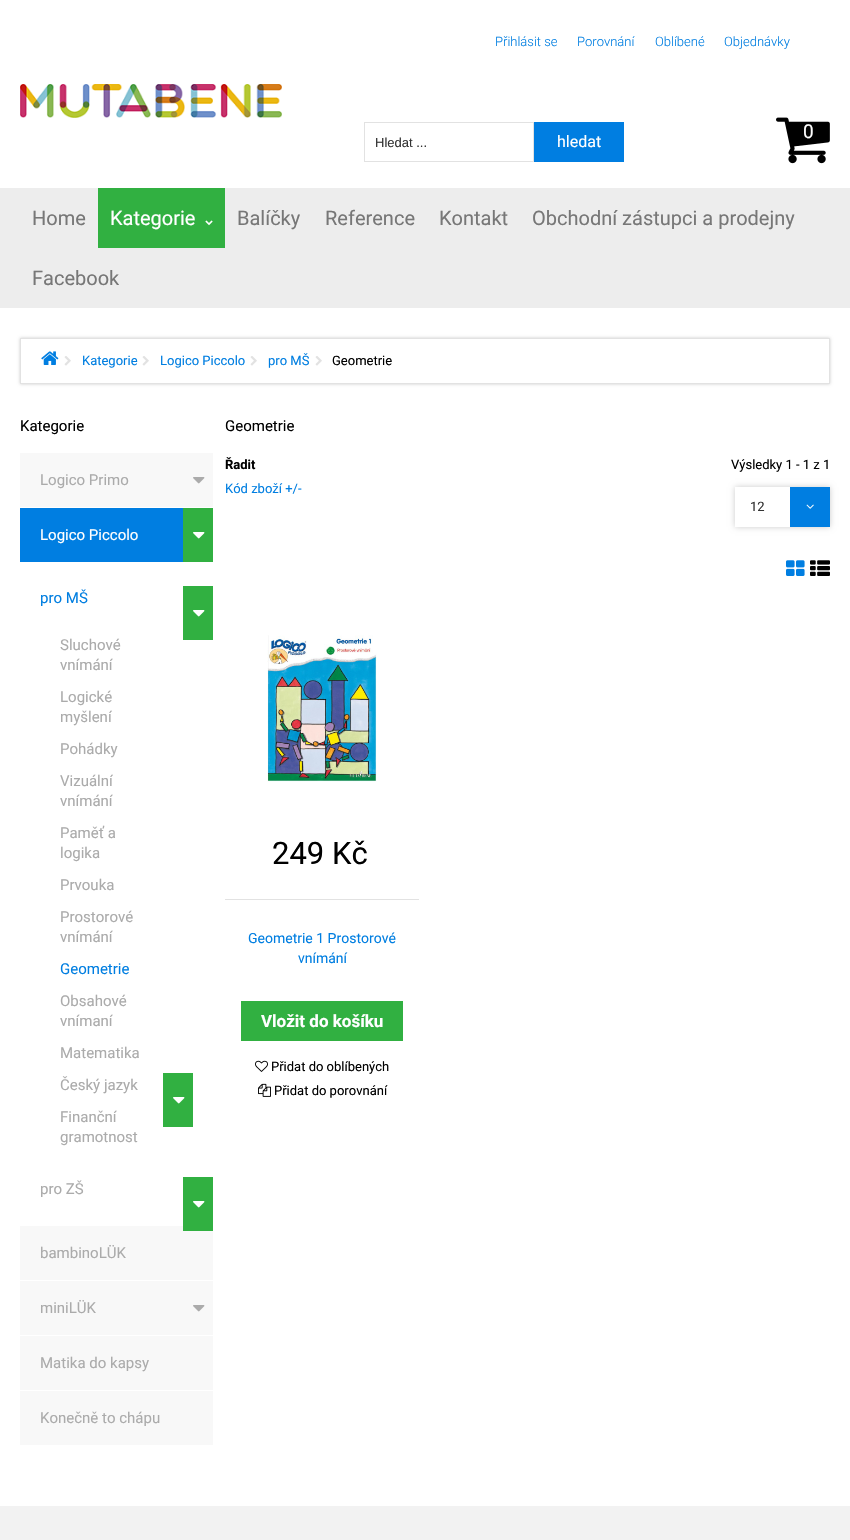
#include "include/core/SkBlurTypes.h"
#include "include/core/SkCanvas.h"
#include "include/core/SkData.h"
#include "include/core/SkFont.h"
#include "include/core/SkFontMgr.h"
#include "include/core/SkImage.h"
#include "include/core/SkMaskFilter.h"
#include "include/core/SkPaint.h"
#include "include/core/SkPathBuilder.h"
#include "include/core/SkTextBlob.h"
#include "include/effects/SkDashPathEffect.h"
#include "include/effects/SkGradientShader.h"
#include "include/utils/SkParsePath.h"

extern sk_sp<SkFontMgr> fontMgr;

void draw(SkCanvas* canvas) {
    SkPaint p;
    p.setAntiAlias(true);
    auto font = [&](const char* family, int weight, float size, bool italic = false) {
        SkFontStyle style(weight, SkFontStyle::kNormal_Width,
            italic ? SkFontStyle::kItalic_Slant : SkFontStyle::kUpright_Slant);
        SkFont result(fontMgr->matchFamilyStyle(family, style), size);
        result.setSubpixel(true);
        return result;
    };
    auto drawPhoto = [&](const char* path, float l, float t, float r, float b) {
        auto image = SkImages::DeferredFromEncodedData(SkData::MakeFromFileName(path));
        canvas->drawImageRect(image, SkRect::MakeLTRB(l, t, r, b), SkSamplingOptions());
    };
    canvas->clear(0xFFFFFFFF);
    auto font1 = font("Roboto", 300, 13);
    p.setColor(0xFF007EE1);
    {
        const struct { const char* s; float x, y; } items[] = {
            {"Přihlásit se", 495, 46},
            {"Porovnání", 577, 46},
            {"Oblíbené", 655, 46},
            {"Objednávky", 724, 46},
        };
        for (auto [s, x, y] : items) {
            canvas->drawString(s, x, y, font1, p);
        }
    }
    drawPhoto("media/1.png", 20, 84, 282, 118);
    drawPhoto("media/2.png", 776, 117, 830, 164);
    auto font2 = font("Roboto", 400, 19);
    p.setColor(0xFFFFFFFF);
    canvas->drawString("0", 803, 138, font2, p);
    p.setStyle(SkPaint::kStroke_Style);
    p.setStrokeWidth(1);
    p.setColor(0xFFE2E2E2);
    canvas->drawRect(SkRect::MakeLTRB(364.5f, 122.5f, 533.5f, 161.5f), p);
    auto font3 = font("Liberation Sans", 400, 13);
    p.setStyle(SkPaint::kFill_Style);
    p.setColor(0xFF333333);
    canvas->drawString("Hledat ...", 375, 147, font3, p);
    p.setColor(0xFF007EE1);
    canvas->drawRect(SkRect::MakeLTRB(534, 122, 624, 162), p);
    auto font4 = font("Roboto", 400, 16);
    p.setColor(0xFFFFFFFF);
    canvas->drawString("hledat", 557, 147, font4, p);
    p.setColor(0xFFEDEDED);
    canvas->drawRect(SkRect::MakeLTRB(0, 188, 850, 308), p);
    auto font5 = font("Roboto", 400, 20);
    p.setColor(0xFF777777);
    canvas->drawString("Home", 32, 225, font5, p);
    p.setColor(0xFF31B041);
    canvas->drawRect(SkRect::MakeLTRB(98, 188, 225, 248), p);
    p.setColor(0xFFFFFFFF);
    canvas->drawString("Kategorie", 110, 225, font5, p);
    drawPhoto("media/3.png", 205, 220, 213, 226);
    p.setColor(0xFF777777);
    {
        const struct { const char* s; float x, y; } items[] = {
            {"Balíčky", 237, 225},
            {"Reference", 325, 225},
            {"Kontakt", 439, 225},
            {"Obchodní zástupci a prodejny", 532, 225},
            {"Facebook", 32, 285},
        };
        for (auto [s, x, y] : items) {
            canvas->drawString(s, x, y, font5, p);
        }
    }
    canvas->save();
    canvas->clipPath(SkPathBuilder(SkPathFillType::kEvenOdd).moveTo(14, 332).lineTo(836, 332).lineTo(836, 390).lineTo(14, 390).close().moveTo(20, 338).lineTo(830, 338).lineTo(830, 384).lineTo(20, 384).close().detach(), true);
    p.setColor(0x33000000);
    p.setMaskFilter(SkMaskFilter::MakeBlur(kNormal_SkBlurStyle, 1.5f));
    canvas->drawRect(SkRect::MakeLTRB(20, 338, 830, 384), p);
    p.setMaskFilter(nullptr);
    canvas->restore();
    p.setStyle(SkPaint::kStroke_Style);
    p.setColor(0xFFE2E2E2);
    canvas->drawRect(SkRect::MakeLTRB(20.5f, 338.5f, 829.5f, 383.5f), p);
    drawPhoto("media/4.png", 41, 351, 59, 365);
    drawPhoto("media/5.png", 64, 356, 71, 366);
    auto font6 = font("Roboto", 400, 13);
    p.setStyle(SkPaint::kFill_Style);
    p.setColor(0xFF007EE1);
    canvas->drawString("Kategorie", 82, 365, font6, p);
    drawPhoto("media/5.png", 142, 356, 149, 366);
    canvas->drawString("Logico Piccolo", 160, 365, font6, p);
    drawPhoto("media/5.png", 250, 356, 257, 366);
    canvas->drawString("pro MŠ", 268, 365, font6, p);
    drawPhoto("media/5.png", 315, 356, 322, 366);
    p.setColor(0xFF000000);
    canvas->drawString("Geometrie", 332, 365, font6, p);
    auto font7 = font("Roboto", 400, 15);
    canvas->drawString("Kategorie", 20, 431, font7, p);
    p.setColor(0xFFF8F8F8);
    canvas->drawRect(SkRect::MakeLTRB(20, 453, 213, 507), p);
    p.setColor(0xFFABABAB);
    canvas->drawString("Logico Primo", 40, 485, font7, p);
    drawPhoto("media/6.png", 193, 477, 205, 484);
    p.setColor(0xFF007EE1);
    canvas->drawRect(SkRect::MakeLTRB(20, 508, 183, 562), p);
    p.setColor(0xFFFFFFFF);
    canvas->drawString("Logico Piccolo", 40, 540, font7, p);
    p.setColor(0xFF31B041);
    canvas->drawRect(SkRect::MakeLTRB(183, 508, 213, 562), p);
    drawPhoto("media/7.png", 193, 532, 205, 539);
    p.setColor(0xFF007EE1);
    canvas->drawString("pro MŠ", 40, 603, font7, p);
    p.setColor(0xFF31B041);
    canvas->drawRect(SkRect::MakeLTRB(183, 586, 213, 640), p);
    drawPhoto("media/7.png", 193, 610, 205, 617);
    p.setColor(0xFFABABAB);
    {
        const struct { const char* s; float x, y; } items[] = {
            {"Sluchové", 60, 650},
            {"vnímání", 60, 670},
            {"Logické", 60, 702},
            {"myšlení", 60, 722},
            {"Pohádky", 60, 754},
            {"Vizuální", 60, 786},
            {"vnímání", 60, 806},
            {"Paměť a", 60, 838},
            {"logika", 60, 858},
            {"Prvouka", 60, 890},
            {"Prostorové", 60, 922},
            {"vnímání", 60, 942},
        };
        for (auto [s, x, y] : items) {
            canvas->drawString(s, x, y, font7, p);
        }
    }
    p.setColor(0xFF007EE1);
    canvas->drawString("Geometrie", 60, 974, font7, p);
    p.setColor(0xFFABABAB);
    {
        const struct { const char* s; float x, y; } items[] = {
            {"Obsahové", 60, 1006},
            {"vnímaní", 60, 1026},
            {"Matematika", 60, 1058},
            {"Český jazyk", 60, 1090},
        };
        for (auto [s, x, y] : items) {
            canvas->drawString(s, x, y, font7, p);
        }
    }
    p.setColor(0xFF31B041);
    canvas->drawRect(SkRect::MakeLTRB(163, 1073, 193, 1127), p);
    drawPhoto("media/7.png", 173, 1097, 185, 1104);
    p.setColor(0xFFABABAB);
    {
        const struct { const char* s; float x, y; } items[] = {
            {"Finanční", 60, 1122},
            {"gramotnost", 60, 1142},
            {"pro ZŠ", 40, 1194},
        };
        for (auto [s, x, y] : items) {
            canvas->drawString(s, x, y, font7, p);
        }
    }
    p.setColor(0xFFF8F8F8);
    canvas->drawRect(SkRect::MakeLTRB(20, 1226, 213, 1280), p);
    p.setColor(0xFF31B041);
    canvas->drawRect(SkRect::MakeLTRB(183, 1177, 213, 1231), p);
    drawPhoto("media/7.png", 193, 1201, 205, 1208);
    p.setColor(0xFFABABAB);
    canvas->drawString("bambinoLÜK", 40, 1258, font7, p);
    p.setColor(0xFFF8F8F8);
    canvas->drawRect(SkRect::MakeLTRB(20, 1281, 213, 1335), p);
    p.setColor(0xFFABABAB);
    canvas->drawString("miniLÜK", 40, 1313, font7, p);
    drawPhoto("media/6.png", 193, 1305, 205, 1312);
    p.setColor(0xFFF8F8F8);
    canvas->drawRect(SkRect::MakeLTRB(20, 1336, 213, 1390), p);
    p.setColor(0xFFABABAB);
    canvas->drawString("Matika do kapsy", 40, 1368, font7, p);
    p.setColor(0xFFF8F8F8);
    canvas->drawRect(SkRect::MakeLTRB(20, 1391, 213, 1445), p);
    p.setColor(0xFFABABAB);
    canvas->drawString("Konečně to chápu", 40, 1423, font7, p);
    p.setColor(0xFF000000);
    canvas->drawString("Geometrie", 225, 431, font7, p);
    auto font8 = font("Roboto", 700, 13);
    canvas->drawString("Řadit", 225, 469, font8, p);
    p.setColor(0xFF007EE1);
    canvas->drawString("Kód zboží +/-", 225, 493, font6, p);
    p.setColor(0xFF000000);
    canvas->drawString("Výsledky 1 - 1 z 1", 731, 469, font6, p);
    canvas->save();
    canvas->clipPath(SkPathBuilder(SkPathFillType::kEvenOdd).moveTo(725, 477).lineTo(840, 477).lineTo(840, 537).lineTo(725, 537).close().moveTo(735, 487).lineTo(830, 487).lineTo(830, 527).lineTo(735, 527).close().detach(), true);
    p.setColor(0x33000000);
    p.setMaskFilter(SkMaskFilter::MakeBlur(kNormal_SkBlurStyle, 3));
    canvas->drawRect(SkRect::MakeLTRB(735, 487, 830, 527), p);
    p.setMaskFilter(nullptr);
    canvas->restore();
    p.setColor(0xFF333333);
    canvas->drawString("12", 750, 511, font6, p);
    p.setColor(0xFF007EE1);
    canvas->drawRect(SkRect::MakeLTRB(790, 487, 830, 527), p);
    drawPhoto("media/8.png", 806, 504, 814, 509);
    drawPhoto("media/9.png", 786, 560, 805, 576);
    drawPhoto("media/10.png", 810, 560, 830, 576);
    drawPhoto("media/11.png", 267, 635, 377, 782);
    p.setColor(0xFFE2E2E2);
    canvas->drawRect(SkRect::MakeLTRB(225, 899, 419, 900), p);
    auto font9 = font("Roboto", 400, 31);
    p.setColor(0xFF000000);
    canvas->drawString("249 Kč", 272, 864, font9, p);
    auto font10 = font("Roboto", 400, 14);
    p.setColor(0xFF007EE1);
    canvas->drawString("Geometrie 1 Prostorové", 248, 943, font10, p);
    canvas->drawString("vnímání", 298, 963, font10, p);
    p.setColor(0xFF31B041);
    canvas->drawRect(SkRect::MakeLTRB(241, 1001, 403, 1041), p);
    auto font11 = font("Roboto", 700, 17);
    p.setColor(0xFFFFFFFF);
    canvas->drawString("Vložit do košíku", 261, 1027, font11, p);
    drawPhoto("media/12.png", 255, 1060, 268, 1072);
    p.setColor(0xFF000000);
    canvas->drawString("Přidat do oblíbených", 271, 1071, font6, p);
    drawPhoto("media/13.png", 258, 1083, 271, 1097);
    canvas->drawString("Přidat do porovnání", 274, 1095, font6, p);
    p.setColor(0xFFF2F2F2);
    canvas->drawRect(SkRect::MakeLTRB(0, 1506, 850, 1540), p);
}
